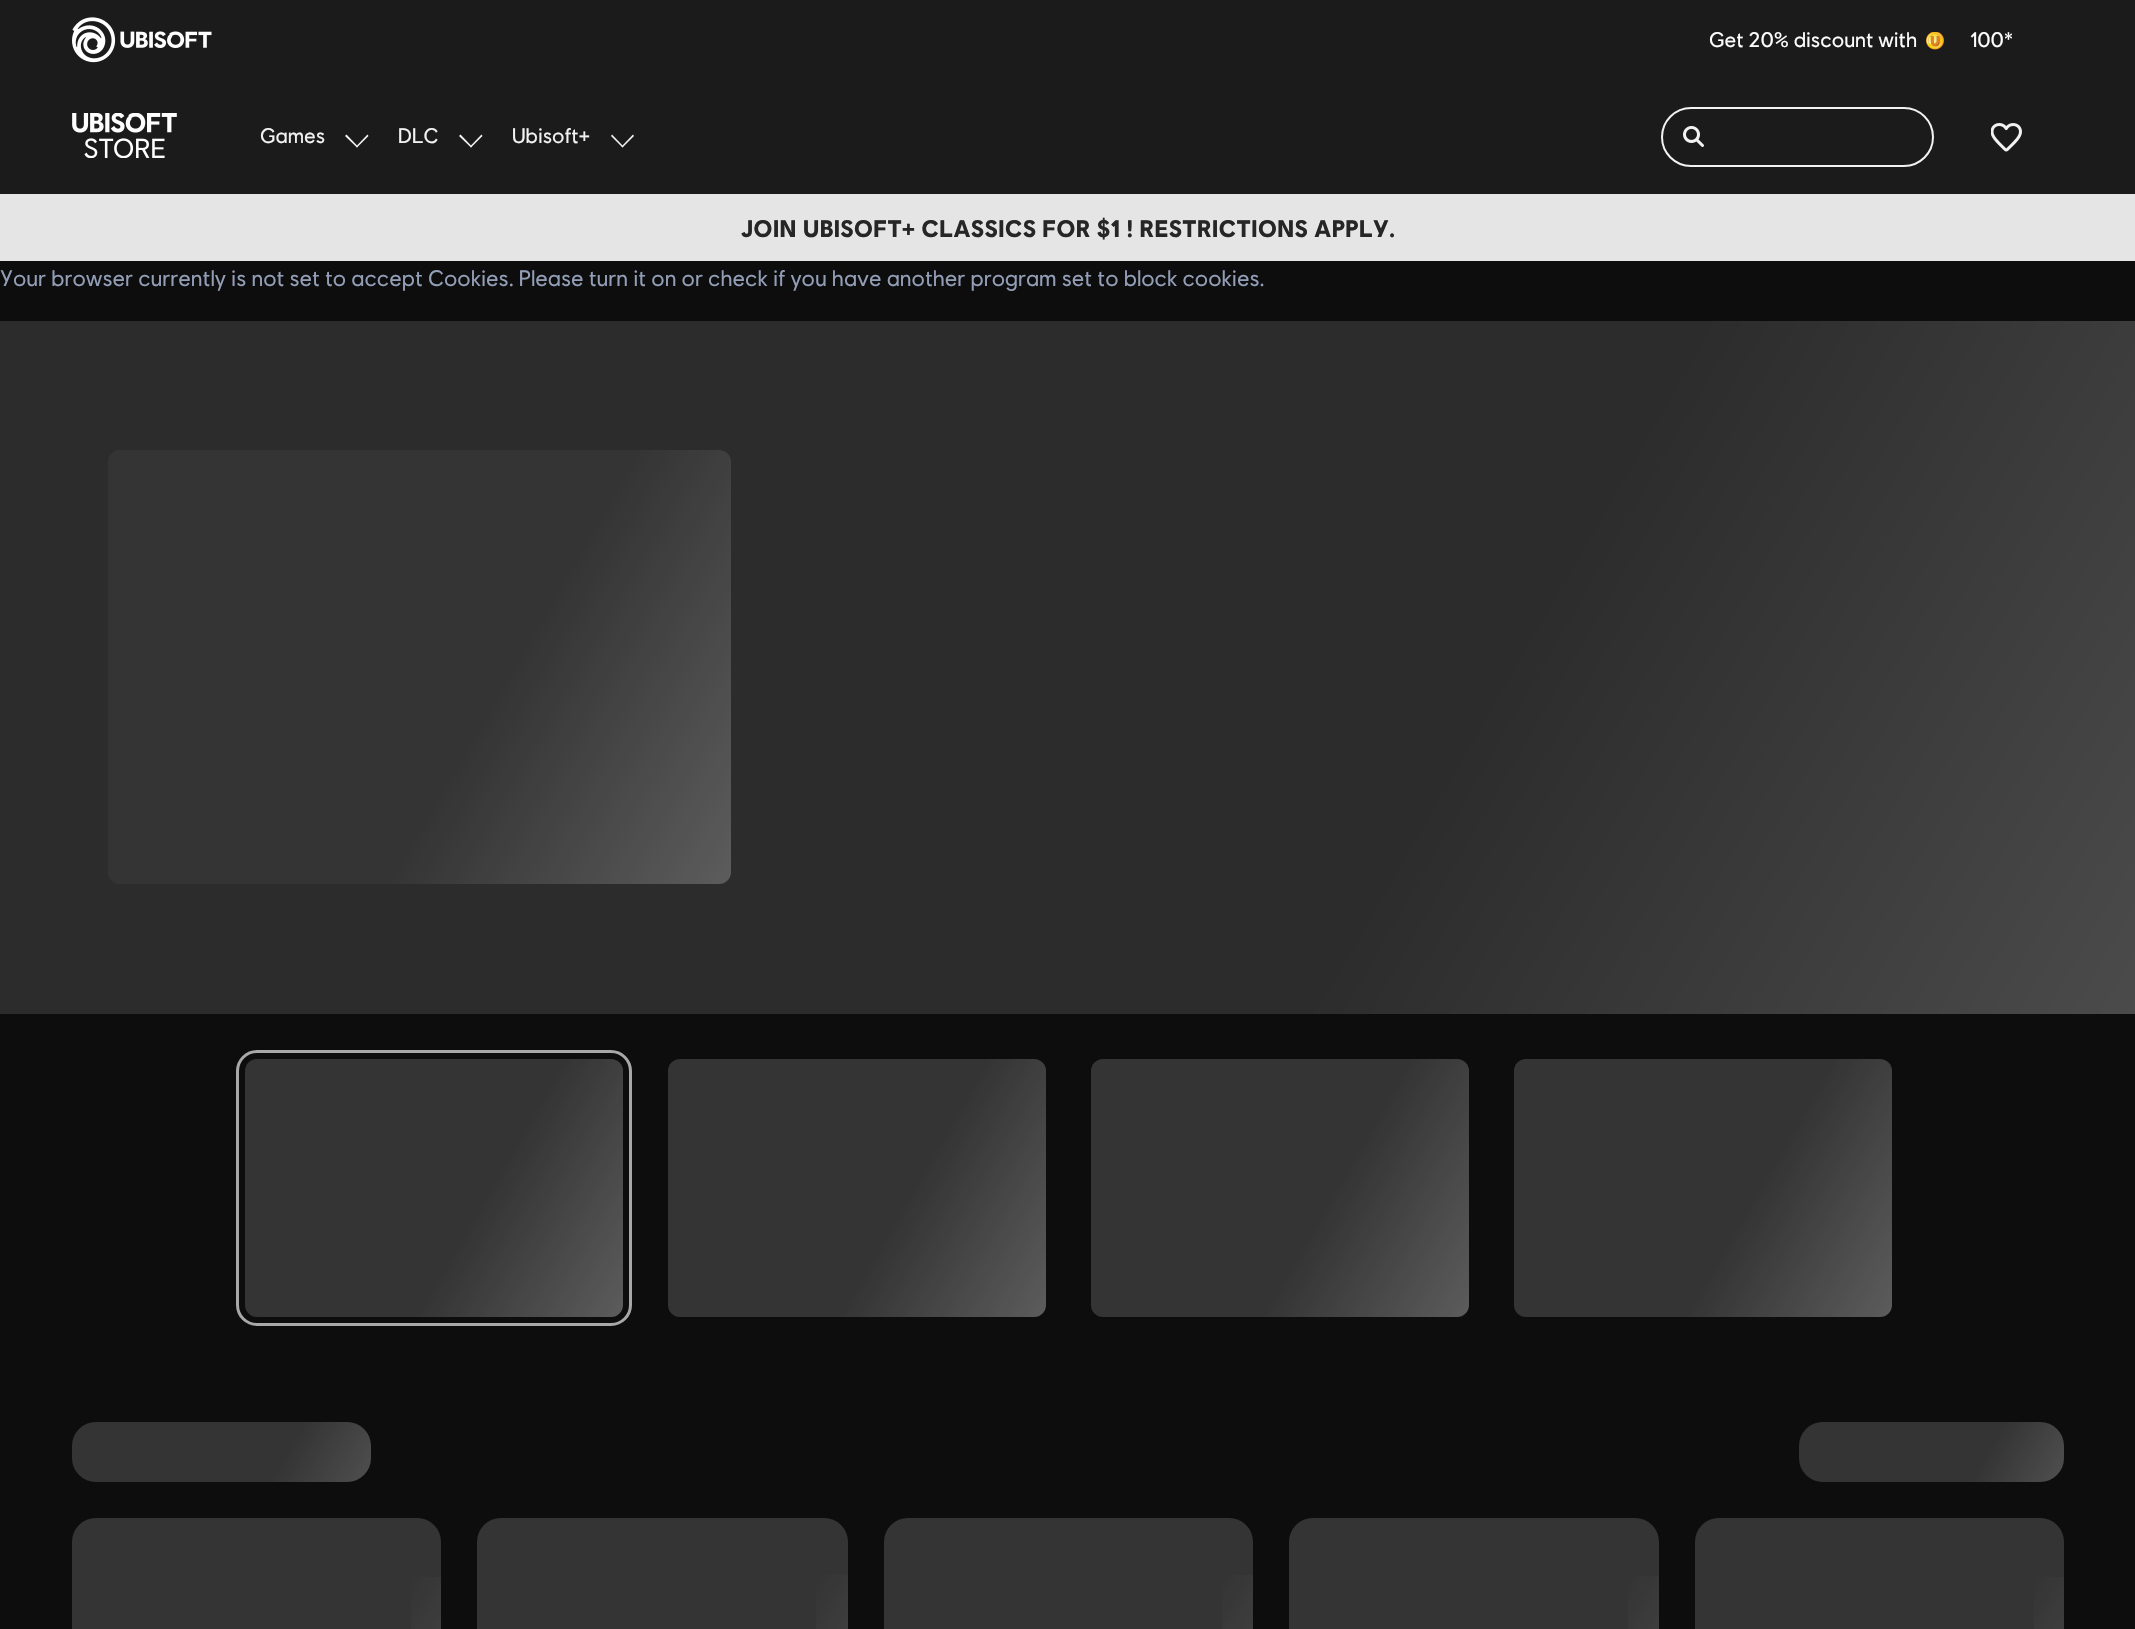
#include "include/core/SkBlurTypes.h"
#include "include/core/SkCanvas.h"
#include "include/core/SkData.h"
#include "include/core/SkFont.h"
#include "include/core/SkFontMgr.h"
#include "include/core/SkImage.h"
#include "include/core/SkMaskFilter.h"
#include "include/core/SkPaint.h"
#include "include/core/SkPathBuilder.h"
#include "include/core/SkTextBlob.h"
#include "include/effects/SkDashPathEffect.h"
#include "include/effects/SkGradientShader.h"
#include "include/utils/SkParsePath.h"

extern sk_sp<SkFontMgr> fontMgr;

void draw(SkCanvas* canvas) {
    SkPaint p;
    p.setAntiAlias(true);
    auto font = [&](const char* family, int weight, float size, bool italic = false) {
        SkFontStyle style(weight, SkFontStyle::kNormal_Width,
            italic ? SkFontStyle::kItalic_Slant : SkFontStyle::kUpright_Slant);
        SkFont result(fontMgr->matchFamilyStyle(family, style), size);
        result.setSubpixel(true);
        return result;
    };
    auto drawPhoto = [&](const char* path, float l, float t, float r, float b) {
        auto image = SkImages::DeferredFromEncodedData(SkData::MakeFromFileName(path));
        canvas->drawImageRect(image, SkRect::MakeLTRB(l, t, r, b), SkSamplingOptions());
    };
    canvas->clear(0xFF0D0D0D);
    p.setColor(0xFF1B1B1B);
    canvas->drawRect(SkRect::MakeLTRB(0, 0, 2135, 194), p);
    drawPhoto("media/1.png", 72, 17, 212, 63);
    auto font1 = font("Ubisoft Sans", 400, 21);
    p.setColor(0xFFFFFFFF);
    canvas->drawString("Get 20% discount with", 1709, 47, font1, p);
    drawPhoto("media/2.png", 1926, 32, 1944, 50);
    canvas->drawString("100*", 1970, 47, font1, p);
    drawPhoto("media/3.png", 72, 113, 177, 158);
    p.setColor(0xFFF2F2F2);
    canvas->drawString("Games", 260, 143, font1, p);
    canvas->drawPath(SkPathBuilder().moveTo(368.5f, 136).lineTo(357, 147.5f).lineTo(356, 146.5f).lineTo(367.5f, 134.5f).close().detach(), p);
    canvas->drawPath(SkPathBuilder().moveTo(358, 146.5f).lineTo(357, 147.5f).lineTo(345, 136).lineTo(346.5f, 134.5f).close().detach(), p);
    canvas->drawString("DLC", 398, 143, font1, p);
    canvas->drawPath(SkPathBuilder().moveTo(482.5f, 136).lineTo(471, 147.5f).lineTo(470, 146.5f).lineTo(481.5f, 134.5f).close().detach(), p);
    canvas->drawPath(SkPathBuilder().moveTo(472, 146.5f).lineTo(471, 147.5f).lineTo(459, 136).lineTo(460.5f, 134.5f).close().detach(), p);
    canvas->drawString("Ubisoft+", 512, 143, font1, p);
    canvas->drawPath(SkPathBuilder().moveTo(634, 136).lineTo(622.5f, 147.5f).lineTo(621.5f, 146.5f).lineTo(633, 134.5f).close().detach(), p);
    canvas->drawPath(SkPathBuilder().moveTo(623.5f, 146.5f).lineTo(622.5f, 147.5f).lineTo(611, 136).lineTo(612, 134.5f).close().detach(), p);
    p.setStyle(SkPaint::kStroke_Style);
    p.setStrokeWidth(2);
    canvas->drawRoundRect(SkRect::MakeLTRB(1662, 108, 1933, 166), 29, 29, p);
    drawPhoto("media/4.png", 1683, 126, 1704, 147);
    drawPhoto("media/5.png", 1991, 123, 2022, 152);
    p.setStyle(SkPaint::kFill_Style);
    p.setColor(0xFFE5E5E5);
    canvas->drawRect(SkRect::MakeLTRB(0, 194, 2135, 261), p);
    auto font2 = font("Ubisoft Sans", 700, 24);
    p.setColor(0xFF262626);
    canvas->drawString("JOIN UBISOFT+ CLASSICS FOR $1 ! RESTRICTIONS APPLY.", 741, 237, font2, p);
    auto font3 = font("Ubisoft Sans", 400, 22.5f);
    p.setColor(0xFF929DB6);
    canvas->drawString("Your browser currently is not set to accept Cookies. Please turn it on or check if you have another program set to block cookies.", 0, 286, font3, p);
    {
        const SkColor colors[] = {0xFF2C2C2C, 0xFF2C2C2C, 0xFF6B6B6B, 0xFF2C2C2C, 0xFF2C2C2C};
        const float stops[] = {0, 0.25f, 0.5f, 0.75f, 1};
        const SkPoint ends[] = {{651, -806}, {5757, 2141}};
        p.setShader(SkGradientShader::MakeLinear(ends, colors, stops, 5, SkTileMode::kClamp));
        p.setAlpha(255);
    }
    canvas->drawRect(SkRect::MakeLTRB(0, 321, 2135, 1014), p);
    p.setShader(nullptr);
    p.setColor(0xFF343434);
    canvas->drawRoundRect(SkRect::MakeLTRB(108, 450, 731, 884), 12, 12, p);
    {
        const SkColor colors[] = {0x00000000, 0x00FFFFFF, 0x4DFFFFFF, 0x00FFFFFF, 0x00000000};
        const float stops[] = {0, 0.25f, 0.5f, 0.75f, 1};
        const SkPoint ends[] = {{248, 208}, {1836, 1125}};
        p.setShader(SkGradientShader::MakeLinear(ends, colors, stops, 5, SkTileMode::kClamp));
        p.setAlpha(255);
    }
    canvas->drawRoundRect(SkRect::MakeLTRB(108, 450, 731, 884), 12, 12, p);
    p.setShader(nullptr);
    p.setColor(0xFF343434);
    canvas->drawRoundRect(SkRect::MakeLTRB(245, 1059, 623, 1317), 12, 12, p);
    {
        const SkColor colors[] = {0x00000000, 0x00FFFFFF, 0x4DFFFFFF, 0x00FFFFFF, 0x00000000};
        const float stops[] = {0, 0.25f, 0.5f, 0.75f, 1};
        const SkPoint ends[] = {{330, 910}, {1293, 1466}};
        p.setShader(SkGradientShader::MakeLinear(ends, colors, stops, 5, SkTileMode::kClamp));
        p.setAlpha(255);
    }
    canvas->drawRoundRect(SkRect::MakeLTRB(245, 1059, 623, 1317), 12, 12, p);
    p.setStyle(SkPaint::kStroke_Style);
    p.setStrokeWidth(3);
    p.setShader(nullptr);
    p.setColor(0xFFA8A8A8);
    canvas->drawRoundRect(SkRect::MakeLTRB(237.5f, 1051.5f, 630.5f, 1324.5f), 19.5f, 19.5f, p);
    p.setStyle(SkPaint::kFill_Style);
    p.setColor(0xFF343434);
    canvas->drawRoundRect(SkRect::MakeLTRB(668, 1059, 1046, 1317), 12, 12, p);
    {
        const SkColor colors[] = {0x00000000, 0x00FFFFFF, 0x4DFFFFFF, 0x00FFFFFF, 0x00000000};
        const float stops[] = {0, 0.25f, 0.5f, 0.75f, 1};
        const SkPoint ends[] = {{753, 910}, {1716, 1466}};
        p.setShader(SkGradientShader::MakeLinear(ends, colors, stops, 5, SkTileMode::kClamp));
        p.setAlpha(255);
    }
    canvas->drawRoundRect(SkRect::MakeLTRB(668, 1059, 1046, 1317), 12, 12, p);
    p.setShader(nullptr);
    p.setColor(0xFF343434);
    canvas->drawRoundRect(SkRect::MakeLTRB(1091, 1059, 1469, 1317), 12, 12, p);
    {
        const SkColor colors[] = {0x00000000, 0x00FFFFFF, 0x4DFFFFFF, 0x00FFFFFF, 0x00000000};
        const float stops[] = {0, 0.25f, 0.5f, 0.75f, 1};
        const SkPoint ends[] = {{1176, 910}, {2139, 1466}};
        p.setShader(SkGradientShader::MakeLinear(ends, colors, stops, 5, SkTileMode::kClamp));
        p.setAlpha(255);
    }
    canvas->drawRoundRect(SkRect::MakeLTRB(1091, 1059, 1469, 1317), 12, 12, p);
    p.setShader(nullptr);
    p.setColor(0xFF343434);
    canvas->drawRoundRect(SkRect::MakeLTRB(1514, 1059, 1892, 1317), 12, 12, p);
    {
        const SkColor colors[] = {0x00000000, 0x00FFFFFF, 0x4DFFFFFF, 0x00FFFFFF, 0x00000000};
        const float stops[] = {0, 0.25f, 0.5f, 0.75f, 1};
        const SkPoint ends[] = {{1599, 910}, {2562, 1466}};
        p.setShader(SkGradientShader::MakeLinear(ends, colors, stops, 5, SkTileMode::kClamp));
        p.setAlpha(255);
    }
    canvas->drawRoundRect(SkRect::MakeLTRB(1514, 1059, 1892, 1317), 12, 12, p);
    p.setShader(nullptr);
    p.setColor(0xFF343434);
    canvas->drawRoundRect(SkRect::MakeLTRB(72, 1422, 371, 1482), 24, 24, p);
    {
        const SkColor colors[] = {0x00000000, 0x00FFFFFF, 0x4DFFFFFF, 0x00FFFFFF, 0x00000000};
        const float stops[] = {0, 0.25f, 0.5f, 0.75f, 1};
        const SkPoint ends[] = {{171, 1251}, {869, 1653}};
        p.setShader(SkGradientShader::MakeLinear(ends, colors, stops, 5, SkTileMode::kClamp));
        p.setAlpha(255);
    }
    canvas->drawRoundRect(SkRect::MakeLTRB(72, 1422, 371, 1482), 24, 24, p);
    p.setShader(nullptr);
    p.setColor(0xFF343434);
    canvas->drawRoundRect(SkRect::MakeLTRB(1799, 1422, 2064, 1482), 24, 24, p);
    {
        const SkColor colors[] = {0x00000000, 0x00FFFFFF, 0x4DFFFFFF, 0x00FFFFFF, 0x00000000};
        const float stops[] = {0, 0.25f, 0.5f, 0.75f, 1};
        const SkPoint ends[] = {{1885, 1272}, {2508, 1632}};
        p.setShader(SkGradientShader::MakeLinear(ends, colors, stops, 5, SkTileMode::kClamp));
        p.setAlpha(255);
    }
    canvas->drawRoundRect(SkRect::MakeLTRB(1799, 1422, 2064, 1482), 24, 24, p);
    p.setShader(nullptr);
    p.setColor(0xFF343434);
    canvas->drawRoundRect(SkRect::MakeLTRB(72, 1518, 441, 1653), 24, 24, p);
    {
        const SkColor colors[] = {0x00000000, 0x00FFFFFF, 0x4DFFFFFF, 0x00FFFFFF, 0x00000000};
        const float stops[] = {0, 0.25f, 0.5f, 0.75f, 1};
        const SkPoint ends[] = {{63, 1534}, {1188, 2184}};
        p.setShader(SkGradientShader::MakeLinear(ends, colors, stops, 5, SkTileMode::kClamp));
        p.setAlpha(255);
    }
    canvas->drawRect(SkRect::MakeLTRB(411, 1577, 441, 1629), p);
    p.setShader(nullptr);
    p.setColor(0xFF343434);
    canvas->drawRoundRect(SkRect::MakeLTRB(477, 1518, 848, 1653), 24, 24, p);
    {
        const SkColor colors[] = {0x00000000, 0x00FFFFFF, 0x4DFFFFFF, 0x00FFFFFF, 0x00000000};
        const float stops[] = {0, 0.25f, 0.5f, 0.75f, 1};
        const SkPoint ends[] = {{468, 1533}, {1597, 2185}};
        p.setShader(SkGradientShader::MakeLinear(ends, colors, stops, 5, SkTileMode::kClamp));
        p.setAlpha(255);
    }
    canvas->drawRect(SkRect::MakeLTRB(816, 1574, 848, 1629), p);
    p.setShader(nullptr);
    p.setColor(0xFF343434);
    canvas->drawRoundRect(SkRect::MakeLTRB(884, 1518, 1253, 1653), 24, 24, p);
    {
        const SkColor colors[] = {0x00000000, 0x00FFFFFF, 0x4DFFFFFF, 0x00FFFFFF, 0x00000000};
        const float stops[] = {0, 0.25f, 0.5f, 0.75f, 1};
        const SkPoint ends[] = {{874, 1534}, {2000, 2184}};
        p.setShader(SkGradientShader::MakeLinear(ends, colors, stops, 5, SkTileMode::kClamp));
        p.setAlpha(255);
    }
    canvas->drawRect(SkRect::MakeLTRB(1222, 1575, 1253, 1629), p);
    p.setShader(nullptr);
    p.setColor(0xFF343434);
    canvas->drawRoundRect(SkRect::MakeLTRB(1289, 1518, 1659, 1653), 24, 24, p);
    {
        const SkColor colors[] = {0x00000000, 0x00FFFFFF, 0x4DFFFFFF, 0x00FFFFFF, 0x00000000};
        const float stops[] = {0, 0.25f, 0.5f, 0.75f, 1};
        const SkPoint ends[] = {{1280, 1533}, {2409, 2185}};
        p.setShader(SkGradientShader::MakeLinear(ends, colors, stops, 5, SkTileMode::kClamp));
        p.setAlpha(255);
    }
    canvas->drawRect(SkRect::MakeLTRB(1628, 1576, 1659, 1629), p);
    p.setShader(nullptr);
    p.setColor(0xFF343434);
    canvas->drawRoundRect(SkRect::MakeLTRB(1695, 1518, 2064, 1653), 24, 24, p);
    {
        const SkColor colors[] = {0x00000000, 0x00FFFFFF, 0x4DFFFFFF, 0x00FFFFFF, 0x00000000};
        const float stops[] = {0, 0.25f, 0.5f, 0.75f, 1};
        const SkPoint ends[] = {{1686, 1534}, {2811, 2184}};
        p.setShader(SkGradientShader::MakeLinear(ends, colors, stops, 5, SkTileMode::kClamp));
        p.setAlpha(255);
    }
    canvas->drawRect(SkRect::MakeLTRB(2034, 1577, 2064, 1629), p);
}
